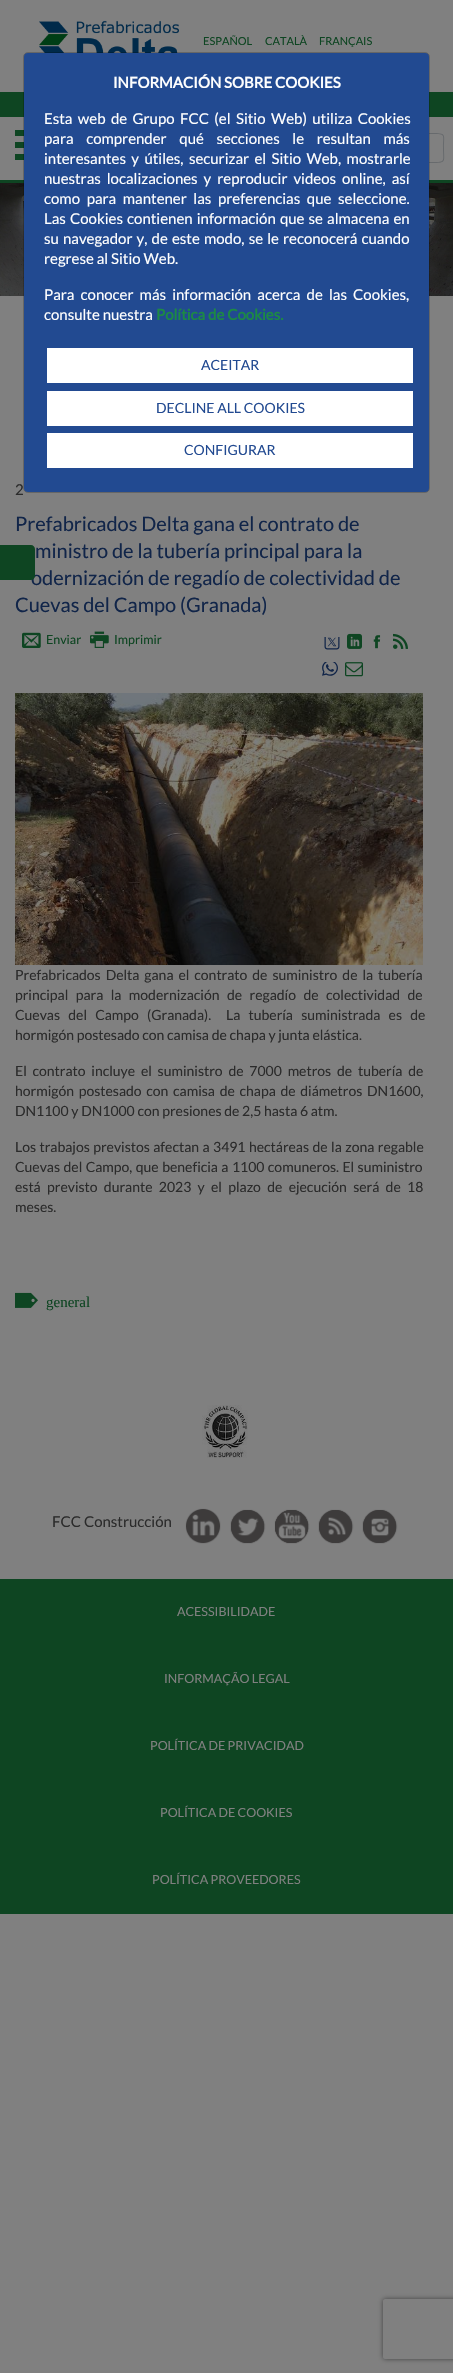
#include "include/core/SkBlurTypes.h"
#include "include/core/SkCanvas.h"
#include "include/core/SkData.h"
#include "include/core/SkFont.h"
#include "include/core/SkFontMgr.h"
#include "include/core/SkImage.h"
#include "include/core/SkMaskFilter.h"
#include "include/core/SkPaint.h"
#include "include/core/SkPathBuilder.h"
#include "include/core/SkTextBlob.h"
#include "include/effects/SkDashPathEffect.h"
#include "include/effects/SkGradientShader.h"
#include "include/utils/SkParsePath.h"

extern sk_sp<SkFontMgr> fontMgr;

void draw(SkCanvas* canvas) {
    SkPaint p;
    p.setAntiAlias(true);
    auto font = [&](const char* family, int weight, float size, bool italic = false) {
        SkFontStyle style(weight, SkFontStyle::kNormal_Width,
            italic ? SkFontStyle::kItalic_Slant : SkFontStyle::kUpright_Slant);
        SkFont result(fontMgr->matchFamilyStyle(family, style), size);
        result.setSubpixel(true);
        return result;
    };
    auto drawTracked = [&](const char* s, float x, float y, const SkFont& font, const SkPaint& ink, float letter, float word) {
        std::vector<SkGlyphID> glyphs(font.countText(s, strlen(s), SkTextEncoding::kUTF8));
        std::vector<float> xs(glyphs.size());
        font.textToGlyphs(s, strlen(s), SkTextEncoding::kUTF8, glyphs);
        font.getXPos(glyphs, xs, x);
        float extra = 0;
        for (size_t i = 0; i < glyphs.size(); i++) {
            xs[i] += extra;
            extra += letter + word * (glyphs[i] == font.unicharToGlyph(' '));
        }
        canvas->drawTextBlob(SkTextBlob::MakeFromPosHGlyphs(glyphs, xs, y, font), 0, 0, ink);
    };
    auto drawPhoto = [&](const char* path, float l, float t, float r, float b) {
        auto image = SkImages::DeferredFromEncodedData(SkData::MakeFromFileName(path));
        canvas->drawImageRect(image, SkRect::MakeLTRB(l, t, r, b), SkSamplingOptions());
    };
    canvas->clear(0xFF808080);
    drawPhoto("media/1.png", 39, 20, 179, 53);
    auto font1 = font("Lato", 400, 11);
    p.setColor(0xFF0E4522);
    {
        const struct { const char* s; float x, y; } items[] = {
            {"ESPAÑOL", 203, 45},
            {"CATALÀ", 265, 45},
            {"FRANÇAIS", 319, 45},
        };
        for (auto [s, x, y] : items) {
            canvas->drawString(s, x, y, font1, p);
        }
    }
    {
        const struct { float l, t, r, b; SkColor color; } items[] = {
            {0, 92, 453, 117, 0xFF0E4522},
            {0, 180, 453, 183, 0xFF0E4522},
            {15, 142, 24, 148, 0xFF0E4522},
            {15, 130, 24, 136, 0xFF0E4522},
            {15, 154, 24, 160, 0xFF0E4522},
        };
        for (auto [l, t, r, b, color] : items) {
            p.setColor(color);
            canvas->drawRect(SkRect::MakeLTRB(l, t, r, b), p);
        }
    }
    p.setColor(0xFF676A6D);
    canvas->drawPath(SkPathBuilder(SkPathFillType::kEvenOdd).moveTo(395, 133).lineTo(432, 133).cubicTo(447, 133, 444, 134, 444, 148).cubicTo(444, 162, 447, 163, 432, 163).lineTo(395, 163).close().moveTo(395, 134).lineTo(432, 134).cubicTo(446, 134, 443, 134, 443, 148).cubicTo(443, 162, 446, 162, 432, 162).lineTo(395, 162).close().detach(), p);
    drawPhoto("media/2.png", 0, 183, 453, 296);
    p.setColor(0xFF224A91);
    canvas->drawRoundRect(SkRect::MakeLTRB(24, 53, 429, 492), 4, 4, p);
    p.setStyle(SkPaint::kStroke_Style);
    p.setStrokeWidth(1);
    p.setColor(0x33000000);
    canvas->drawRoundRect(SkRect::MakeLTRB(23.5f, 52.5f, 429.5f, 492.5f), 4.5f, 4.5f, p);
    auto font2 = font("Lato", 700, 15);
    p.setStyle(SkPaint::kFill_Style);
    p.setColor(0xFFFFFFFF);
    canvas->drawString("INFORMACIÓN SOBRE COOKIES", 113, 88, font2, p);
    auto font3 = font("Lato", 400, 15);
    drawTracked("Esta web de Grupo FCC (el Sitio Web) utiliza Cookies", 44, 124, font3, p, 0, 2.5f);
    drawTracked("para comprender qué secciones le resultan más", 44, 144, font3, p, 0, 9.75f);
    drawTracked("interesantes y útiles, securizar el Sitio Web, mostrarle", 44, 164, font3, p, 0, 2.5f);
    drawTracked("nuestras localizaciones y reproducir videos online, así", 44, 184, font3, p, 0, 3.1f);
    drawTracked("como para mantener las preferencias que seleccione.", 44, 204, font3, p, 0, 3.75f);
    drawTracked("Las Cookies contienen información que se almacena en", 44, 224, font3, p, 0, 1.25f);
    drawTracked("su navegador y, de este modo, se le reconocerá cuando", 44, 244, font3, p, 0, 1.25f);
    canvas->drawString("regrese al Sitio Web.", 44, 264, font3, p);
    drawTracked("Para conocer más información acerca de las Cookies,", 44, 300, font3, p, 0, 3.25f);
    canvas->drawString("consulte nuestra", 44, 320, font3, p);
    p.setColor(0xFF1C8A44);
    canvas->drawString("Política de Cookies.", 156, 320, font2, p);
    p.setColor(0xFFFFFFFF);
    canvas->drawRect(SkRect::MakeLTRB(47.5f, 348.5f, 412.5f, 382.5f), p);
    p.setStyle(SkPaint::kStroke_Style);
    canvas->drawRect(SkRect::MakeLTRB(47.5f, 348.5f, 412.5f, 382.5f), p);
    auto font4 = font("Lato", 400, 14);
    p.setStyle(SkPaint::kFill_Style);
    p.setColor(0xFF224A91);
    canvas->drawString("ACEITAR", 201, 370, font4, p);
    p.setColor(0xFFFFFFFF);
    canvas->drawRect(SkRect::MakeLTRB(47.5f, 391.5f, 412.5f, 425.5f), p);
    p.setStyle(SkPaint::kStroke_Style);
    canvas->drawRect(SkRect::MakeLTRB(47.5f, 391.5f, 412.5f, 425.5f), p);
    p.setStyle(SkPaint::kFill_Style);
    p.setColor(0xFF224A91);
    canvas->drawString("DECLINE ALL COOKIES", 156, 413, font4, p);
    p.setColor(0xFFFFFFFF);
    canvas->drawRect(SkRect::MakeLTRB(47.5f, 433.5f, 412.5f, 467.5f), p);
    p.setStyle(SkPaint::kStroke_Style);
    canvas->drawRect(SkRect::MakeLTRB(47.5f, 433.5f, 412.5f, 467.5f), p);
    p.setStyle(SkPaint::kFill_Style);
    p.setColor(0xFF224A91);
    canvas->drawString("CONFIGURAR", 184, 455, font4, p);
    p.setColor(0xFF2B2B2B);
    canvas->drawString("2", 15, 495, font3, p);
    auto font5 = font("Lato", 400, 20);
    p.setColor(0xFF112549);
    {
        const struct { const char* s; float x, y; } items[] = {
            {"Prefabricados Delta gana el contrato de", 15, 531},
            {"ministro de la tubería principal para la", 35, 558},
            {"odernización de regadío de colectividad de", 31, 585},
            {"Cuevas del Campo (Granada)", 15, 612},
        };
        for (auto [s, x, y] : items) {
            canvas->drawString(s, x, y, font5, p);
        }
    }
    drawPhoto("media/3.png", 22, 632, 41, 648);
    auto font6 = font("Lato", 400, 12.5f);
    p.setColor(0xFF0E4522);
    canvas->drawString("Enviar", 46, 644, font6, p);
    drawPhoto("media/4.png", 90, 631, 109, 648);
    canvas->drawString("Imprimir", 114, 644, font6, p);
    drawPhoto("media/5.png", 324, 637, 340, 650);
    drawPhoto("media/6.png", 347, 633, 362, 649);
    drawPhoto("media/7.png", 373, 635, 381, 649);
    drawPhoto("media/8.png", 393, 633, 408, 649);
    drawPhoto("media/9.png", 322, 662, 338, 676);
    drawPhoto("media/10.png", 345, 662, 363, 677);
    drawPhoto("media/11.png", 15, 693, 423, 965);
    p.setColor(0xFF2B2B2B);
    drawTracked("Prefabricados Delta gana el contrato de suministro de la tubería", 15, 980, font4, p, 0, 2.25f);
    drawTracked("principal para la modernización de regadío de colectividad de", 15, 1000, font4, p, 0, 4.75f);
    drawTracked("Cuevas del Campo (Granada).", 15, 1020, font4, p, 0, 5.5f);
    drawTracked("La tubería suministrada es de", 226, 1020, font4, p, 0, 5.5f);
    canvas->drawString("hormigón postesado con camisa de chapa y junta elástica.", 15, 1040, font4, p);
    drawTracked("El contrato incluye el suministro de 7000 metros de tubería de", 15, 1076, font4, p, 0, 3.1f);
    drawTracked("hormigón postesado con camisa de chapa de diámetros DN1600,", 15, 1096, font4, p, 0, 2);
    canvas->drawString("DN1100 y DN1000 con presiones de 2,5 hasta 6 atm.", 15, 1116, font4, p);
    drawTracked("Los trabajos previstos afectan a 3491 hectáreas de la zona regable", 15, 1152, font4, p, 0, 0.75f);
    drawTracked("Cuevas del Campo, que beneficia a 1100 comuneros. El suministro", 15, 1172, font4, p, 0, 0.75f);
    drawTracked("está previsto durante 2023 y el plazo de ejecución será de 18", 15, 1192, font4, p, 0, 3.6f);
    canvas->drawString("meses.", 15, 1212, font4, p);
    drawPhoto("media/12.png", 15, 1292, 38, 1308);
    auto font7 = font("Liberation Serif", 400, 15);
    p.setColor(0xFF0E4522);
    canvas->drawString("general", 46, 1307, font7, p);
    canvas->drawPath(SkPathBuilder().moveTo(0, 545).lineTo(31, 545).cubicTo(33, 545, 35, 547, 35, 549).lineTo(35, 576).cubicTo(35, 578, 33, 580, 31, 580).lineTo(0, 580).close().detach(), p);
    drawPhoto("media/13.png", 202, 1405, 248, 1458);
    p.setColor(0xFF2B2B2B);
    canvas->drawString("FCC Construcción", 52, 1527, font3, p);
    p.setColor(0xFF3D3B3B);
    canvas->drawRect(SkRect::MakeLTRB(185, 1508, 221, 1544), p);
    drawPhoto("media/14.png", 181, 1505, 225, 1549);
    canvas->drawRect(SkRect::MakeLTRB(230, 1509, 265, 1544), p);
    drawPhoto("media/15.png", 225, 1505, 269, 1549);
    canvas->drawRect(SkRect::MakeLTRB(274, 1509, 309, 1544), p);
    drawPhoto("media/16.png", 269, 1505, 313, 1549);
    canvas->drawRect(SkRect::MakeLTRB(318, 1509, 353, 1544), p);
    drawPhoto("media/17.png", 313, 1505, 357, 1549);
    canvas->drawRect(SkRect::MakeLTRB(362, 1509, 397, 1544), p);
    drawPhoto("media/18.png", 357, 1505, 401, 1549);
    p.setColor(0xFF0E4522);
    canvas->drawRect(SkRect::MakeLTRB(0, 1579, 453, 1914), p);
    p.setColor(0xFF808080);
    {
        const struct { const char* s; float x, y; } items[] = {
            {"ACESSIBILIDADE", 177, 1616},
            {"INFORMAÇÃO LEGAL", 164, 1683},
            {"POLÍTICA DE PRIVACIDAD", 150, 1750},
            {"POLÍTICA DE COOKIES", 160, 1817},
            {"POLÍTICA PROVEEDORES", 152, 1884},
        };
        for (auto [s, x, y] : items) {
            canvas->drawString(s, x, y, font6, p);
        }
    }
    canvas->save();
    canvas->clipPath(SkPathBuilder(SkPathFillType::kEvenOdd).moveTo(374, 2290).lineTo(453, 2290).lineTo(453, 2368).lineTo(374, 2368).close().moveTo(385, 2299).lineTo(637, 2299).cubicTo(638, 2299, 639, 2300, 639, 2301).lineTo(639, 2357).cubicTo(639, 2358, 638, 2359, 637, 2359).lineTo(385, 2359).cubicTo(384, 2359, 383, 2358, 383, 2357).lineTo(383, 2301).cubicTo(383, 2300, 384, 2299, 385, 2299).close().detach(), true);
    p.setColor(0xFF404040);
    p.setMaskFilter(SkMaskFilter::MakeBlur(kNormal_SkBlurStyle, 2.5f));
    canvas->drawRoundRect(SkRect::MakeLTRB(383, 2299, 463, 2359), 2, 2, p);
    p.setMaskFilter(nullptr);
    canvas->restore();
}
